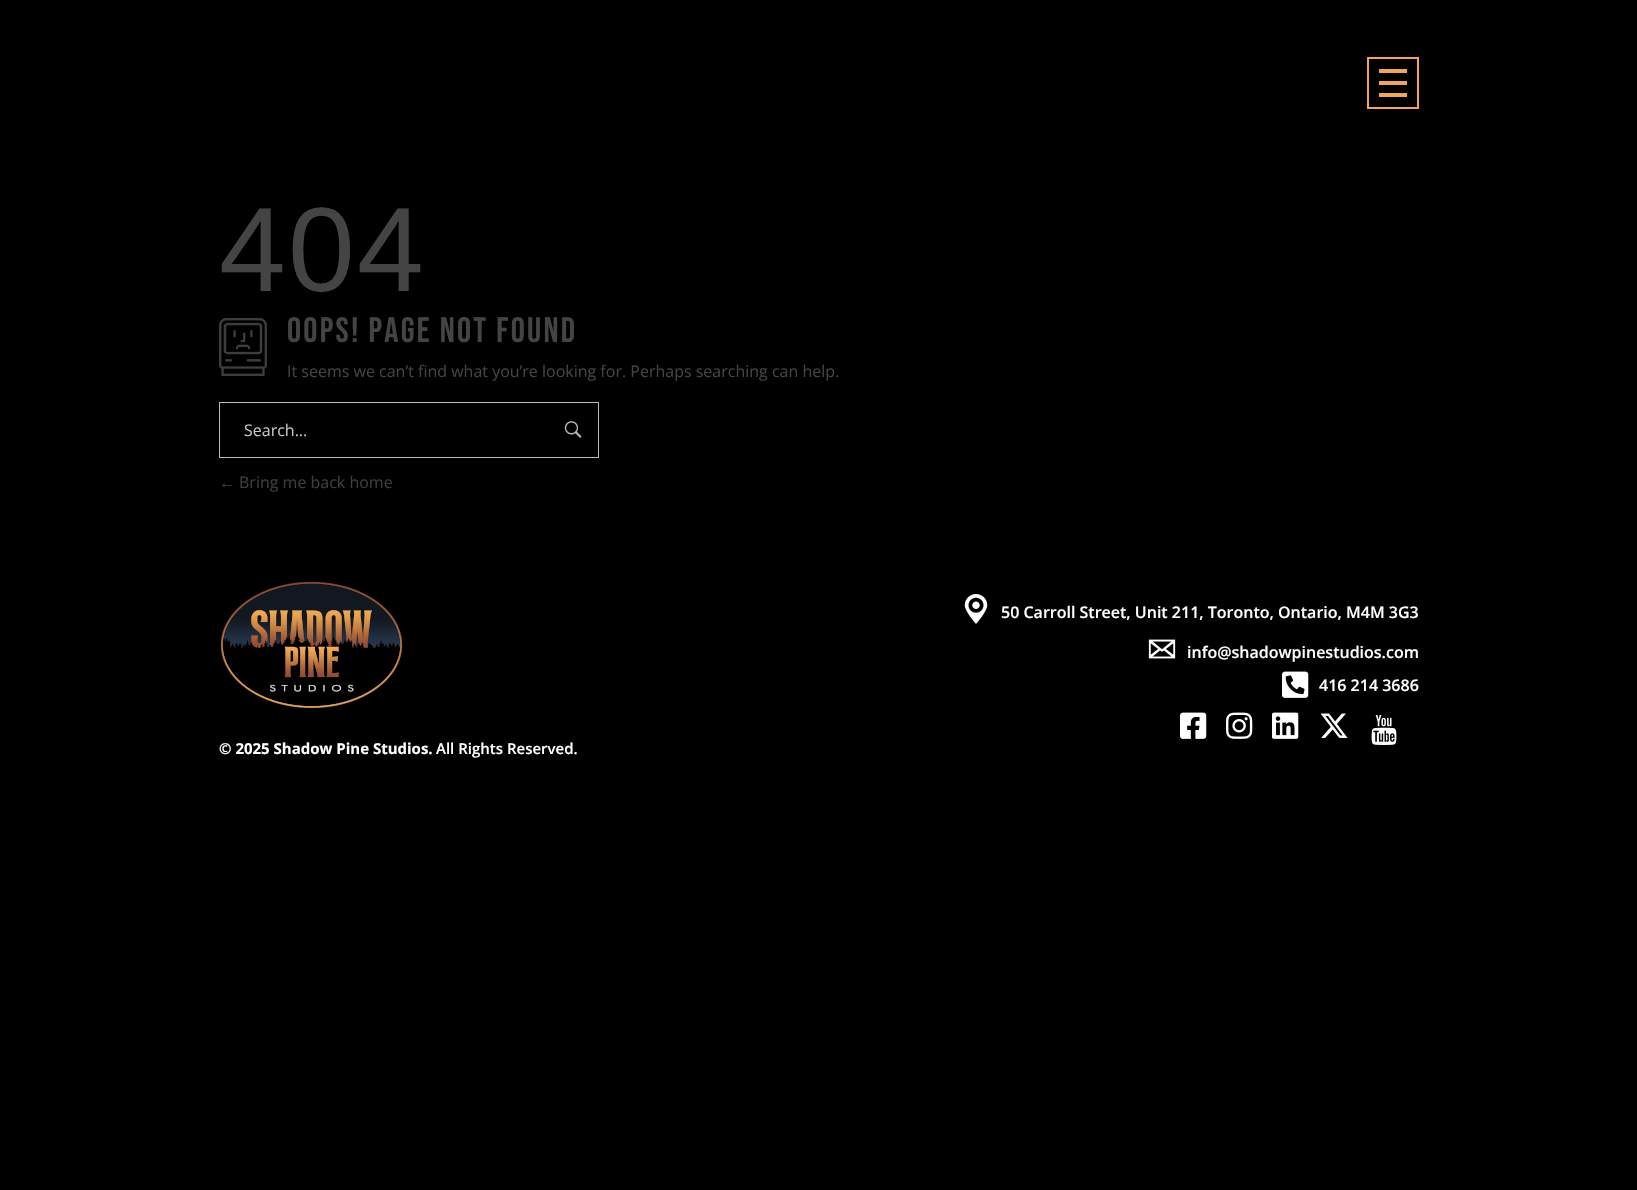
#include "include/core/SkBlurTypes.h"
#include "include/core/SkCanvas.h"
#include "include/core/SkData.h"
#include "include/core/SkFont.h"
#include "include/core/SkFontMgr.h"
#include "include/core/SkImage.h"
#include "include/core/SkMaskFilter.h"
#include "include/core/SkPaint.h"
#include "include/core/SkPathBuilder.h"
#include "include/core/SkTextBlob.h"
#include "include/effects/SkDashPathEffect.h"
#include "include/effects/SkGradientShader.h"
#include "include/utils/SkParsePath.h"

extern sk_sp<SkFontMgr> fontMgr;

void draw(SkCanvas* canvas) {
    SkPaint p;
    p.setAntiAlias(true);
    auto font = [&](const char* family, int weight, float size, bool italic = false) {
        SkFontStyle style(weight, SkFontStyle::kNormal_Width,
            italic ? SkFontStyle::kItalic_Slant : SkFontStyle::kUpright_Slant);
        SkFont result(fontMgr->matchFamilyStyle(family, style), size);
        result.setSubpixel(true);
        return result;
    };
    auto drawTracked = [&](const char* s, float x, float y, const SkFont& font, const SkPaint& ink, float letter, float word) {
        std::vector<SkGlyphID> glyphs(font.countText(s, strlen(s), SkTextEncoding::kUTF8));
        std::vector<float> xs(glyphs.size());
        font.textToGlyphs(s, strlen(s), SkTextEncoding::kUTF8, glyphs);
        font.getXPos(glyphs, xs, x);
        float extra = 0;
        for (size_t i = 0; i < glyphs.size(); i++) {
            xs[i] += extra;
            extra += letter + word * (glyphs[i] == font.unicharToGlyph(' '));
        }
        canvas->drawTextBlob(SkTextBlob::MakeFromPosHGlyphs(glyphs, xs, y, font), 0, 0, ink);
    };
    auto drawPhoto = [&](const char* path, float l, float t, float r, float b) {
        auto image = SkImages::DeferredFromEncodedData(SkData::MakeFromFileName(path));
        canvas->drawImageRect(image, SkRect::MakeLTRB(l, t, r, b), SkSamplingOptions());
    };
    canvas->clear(0xFF000000);
    p.setStyle(SkPaint::kStroke_Style);
    p.setStrokeWidth(2);
    p.setColor(0xFFF0A74D);
    canvas->drawRect(SkRect::MakeLTRB(1368, 58, 1418, 108), p);
    p.setStyle(SkPaint::kFill_Style);
    {
        const struct { float l, t, r, b; SkColor color; } items[] = {
            {1379, 69, 1407, 73, 0xFFF0A74D},
            {1379, 81, 1407, 85, 0xFFF0A74D},
            {1379, 93, 1407, 97, 0xFFF0A74D},
        };
        for (auto [l, t, r, b, color] : items) {
            p.setColor(color);
            canvas->drawRect(SkRect::MakeLTRB(l, t, r, b), p);
        }
    }
    auto font1 = font("Liberation Sans", 400, 120);
    p.setColor(0xFF444444);
    drawTracked("404", 219, 291, font1, p, 2.25f, 0);
    drawPhoto("media/1.png", 219, 318, 267, 376);
    auto font2 = font("Bebas Neue", 400, 35.25f);
    drawTracked("Oops! Page Not Found", 287, 342, font2, p, 2.25f, 0);
    auto font3 = font("Open Sans", 400, 16);
    canvas->drawString("It seems we can’t find what you’re looking for. Perhaps searching can help.", 287, 377, font3, p);
    p.setStyle(SkPaint::kStroke_Style);
    p.setStrokeWidth(1);
    p.setColor(0xFFBBBBBB);
    canvas->drawRect(SkRect::MakeLTRB(219.5f, 402.5f, 598.5f, 457.5f), p);
    p.setStyle(SkPaint::kFill_Style);
    p.setColor(0xFFC5C5C5);
    canvas->drawString("Search...", 244, 436, font3, p);
    drawPhoto("media/2.png", 564, 421, 582, 438);
    auto font4 = font("Liberation Sans", 400, 16);
    p.setColor(0xFF3D3D3D);
    canvas->drawString("←", 219, 488, font4, p);
    canvas->drawString("Bring me back home", 239, 488, font3, p);
    drawPhoto("media/3.png", 964, 594, 988, 624);
    auto font5 = font("Open Sans", 600, 16);
    p.setColor(0xFFFFFFFF);
    canvas->drawString("50 Carroll Street, Unit 211, Toronto, Ontario, M4M 3G3", 1001, 618, font5, p);
    drawPhoto("media/4.png", 1148, 639, 1176, 659);
    canvas->drawString("info@shadowpinestudios.com", 1187, 658, font5, p);
    drawPhoto("media/5.png", 1282, 671, 1309, 698);
    canvas->drawString("416 214 3686", 1319, 691, font5, p);
    drawPhoto("media/6.png", 1180, 712, 1207, 739);
    drawPhoto("media/7.png", 1226, 712, 1253, 739);
    drawPhoto("media/8.png", 1272, 712, 1299, 739);
    drawPhoto("media/9.png", 1320, 713, 1348, 738);
    drawPhoto("media/10.png", 1371, 715, 1397, 745);
    drawPhoto("media/11.png", 220, 581, 403, 708);
    auto font6 = font("Open Sans", 700, 15);
    canvas->drawString("© 2025 Shadow Pine Studios.", 219, 754, font6, p);
    auto font7 = font("Open Sans", 600, 15);
    canvas->drawString("All Rights Reserved.", 436, 754, font7, p);
}
